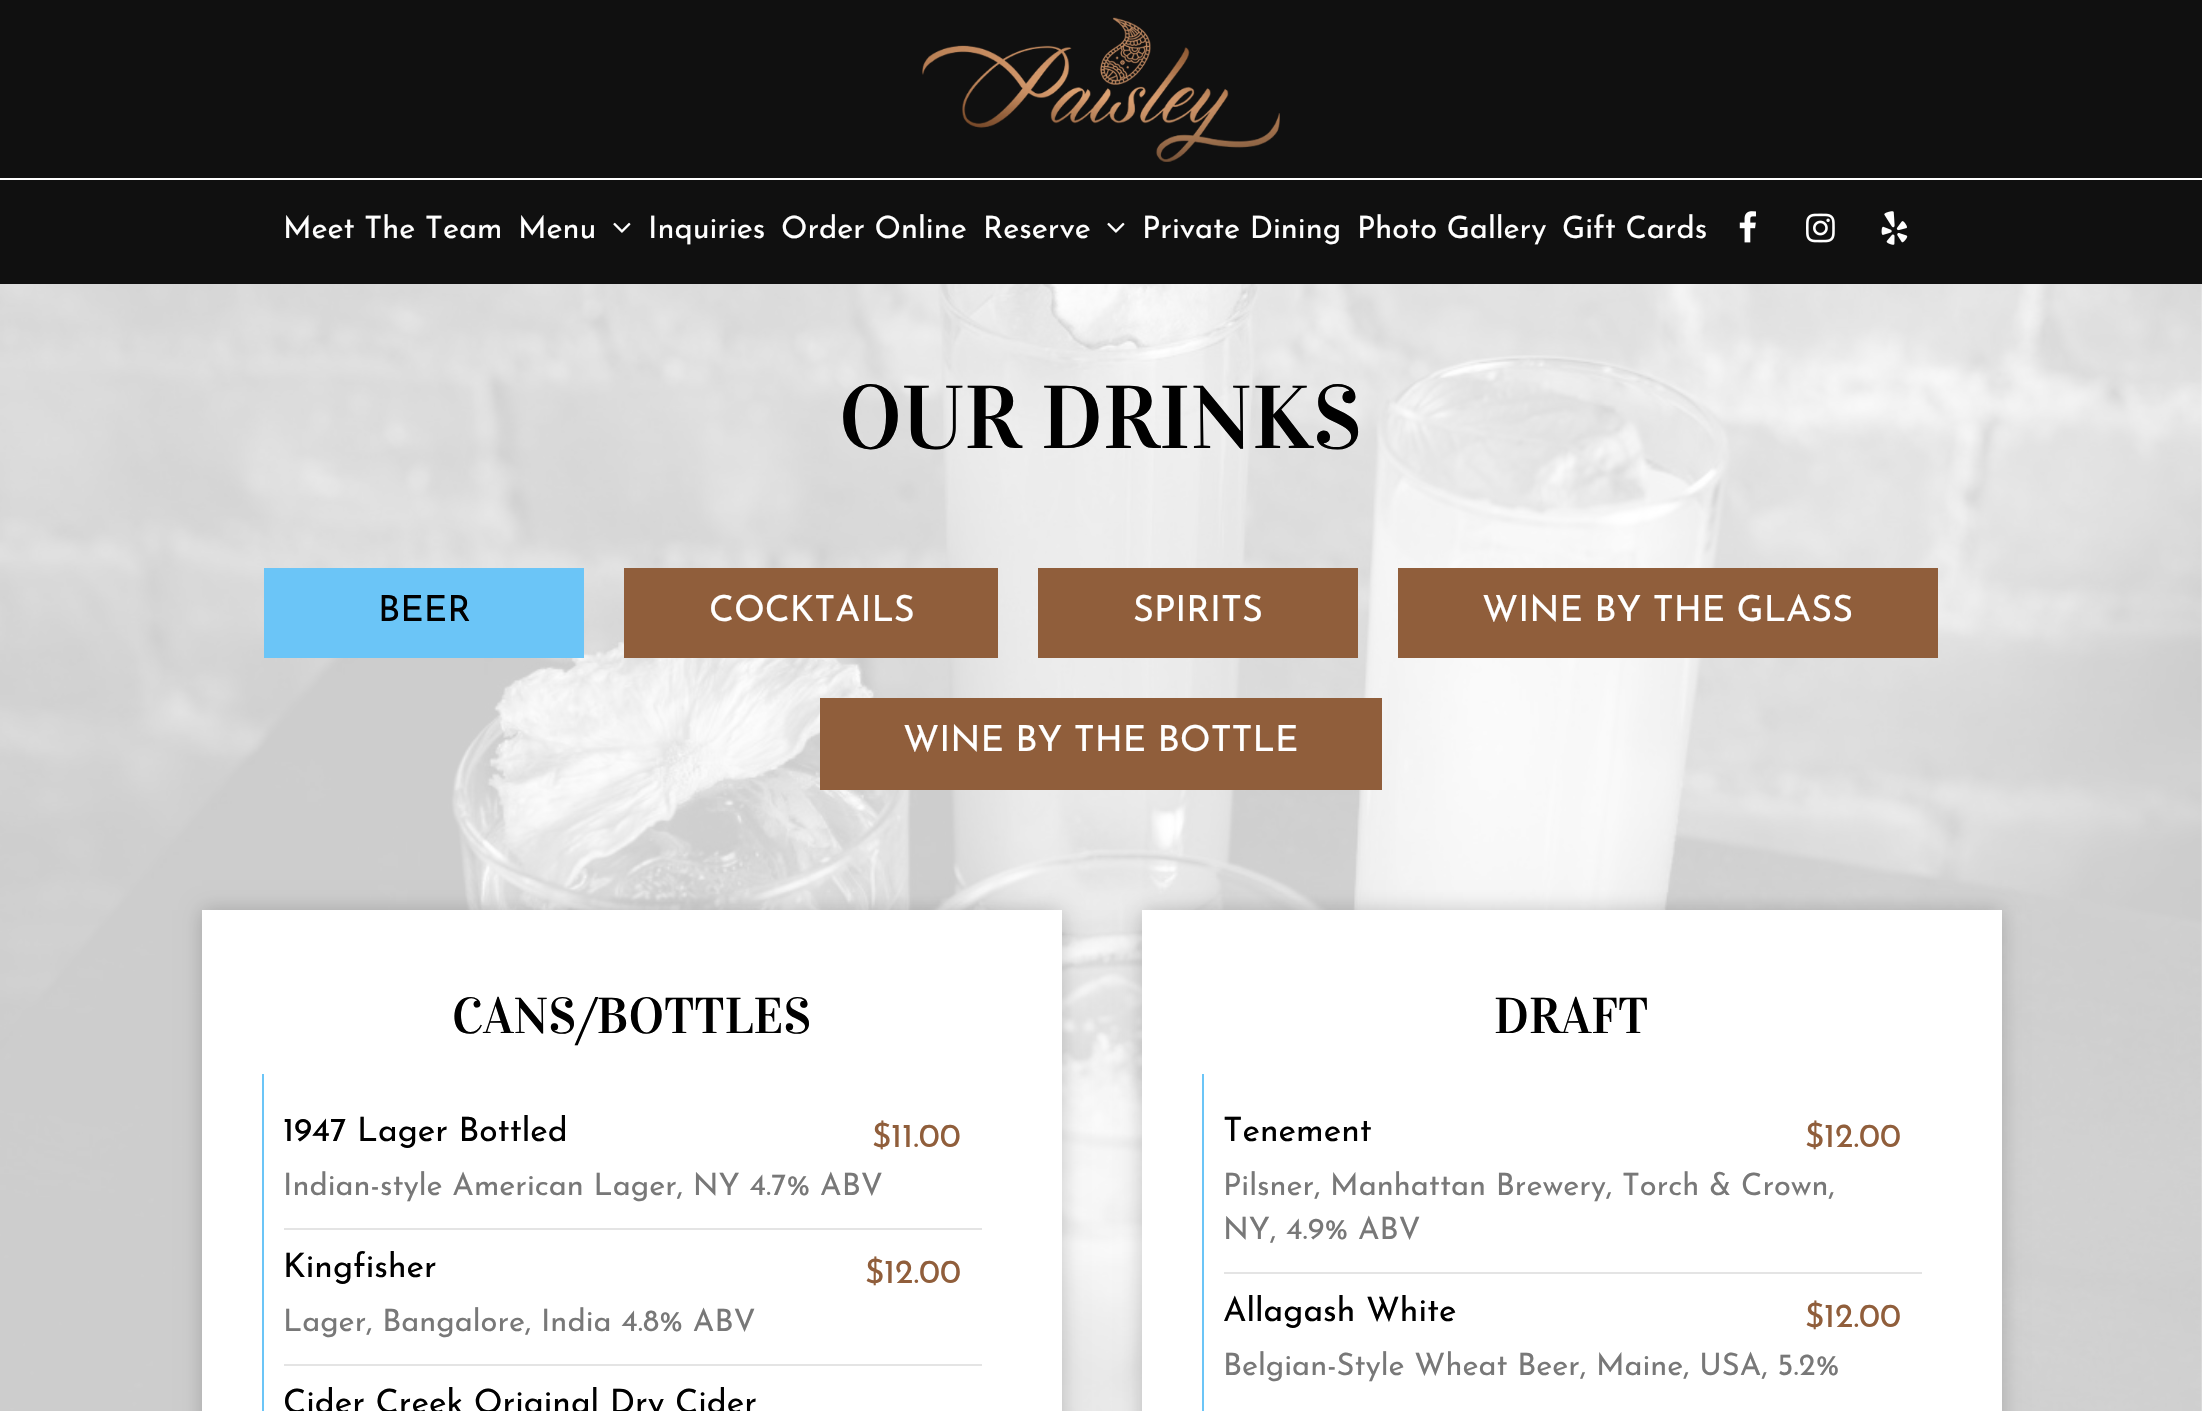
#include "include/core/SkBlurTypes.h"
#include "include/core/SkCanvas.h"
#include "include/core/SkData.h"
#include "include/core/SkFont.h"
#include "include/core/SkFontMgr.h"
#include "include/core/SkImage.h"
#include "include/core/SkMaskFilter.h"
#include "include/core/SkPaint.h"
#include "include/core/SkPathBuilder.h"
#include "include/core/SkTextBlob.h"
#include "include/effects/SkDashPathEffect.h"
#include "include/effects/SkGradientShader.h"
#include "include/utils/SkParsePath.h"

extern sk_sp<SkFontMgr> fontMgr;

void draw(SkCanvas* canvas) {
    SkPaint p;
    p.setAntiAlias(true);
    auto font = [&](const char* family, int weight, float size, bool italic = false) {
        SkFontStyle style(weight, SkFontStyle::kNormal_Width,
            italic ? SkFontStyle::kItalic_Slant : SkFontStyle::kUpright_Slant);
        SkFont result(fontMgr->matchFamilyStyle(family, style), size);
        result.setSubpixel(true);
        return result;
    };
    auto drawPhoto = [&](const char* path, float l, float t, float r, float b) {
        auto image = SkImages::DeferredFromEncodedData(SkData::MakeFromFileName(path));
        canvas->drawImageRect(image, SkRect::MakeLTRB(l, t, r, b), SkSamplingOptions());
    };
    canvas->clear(0xFFFFFFFF);
    p.setColor(0xFF101010);
    canvas->drawRect(SkRect::MakeLTRB(0, 0, 2202, 178), p);
    drawPhoto("media/1.png", 922, 17, 1280, 162);
    canvas->drawRect(SkRect::MakeLTRB(0, 180, 2202, 284), p);
    auto font1 = font("Josefin Sans", 100, 30.8f);
    p.setColor(0xFFFFFFFF);
    canvas->drawString("Meet The Team", 283, 238, font1, p);
    canvas->drawString("Menu", 518, 238, font1, p);
    drawPhoto("media/2.png", 613, 222, 631, 233);
    {
        const struct { const char* s; float x, y; } items[] = {
            {"Inquiries", 648, 238},
            {"Order Online", 781, 238},
            {"Reserve", 983, 238},
        };
        for (auto [s, x, y] : items) {
            canvas->drawString(s, x, y, font1, p);
        }
    }
    drawPhoto("media/2.png", 1107, 222, 1125, 233);
    {
        const struct { const char* s; float x, y; } items[] = {
            {"Private Dining", 1142, 238},
            {"Photo Gallery", 1357, 238},
            {"Gift Cards", 1562, 238},
        };
        for (auto [s, x, y] : items) {
            canvas->drawString(s, x, y, font1, p);
        }
    }
    drawPhoto("media/3.png", 1739, 211, 1756, 243);
    drawPhoto("media/4.png", 1806, 213, 1835, 243);
    drawPhoto("media/5.png", 1881, 211, 1908, 245);
    drawPhoto("media/6.png", 0, 284, 2202, 1411);
    auto font2 = font("Vidaloka", 400, 89.5f);
    p.setColor(0xFF000000);
    canvas->drawString("OUR DRINKS", 839, 448, font2, p);
    p.setColor(0xFF6BC5F7);
    canvas->drawRect(SkRect::MakeLTRB(264, 568, 584, 658), p);
    auto font3 = font("Josefin Sans", 100, 36);
    p.setColor(0xFF000000);
    canvas->drawString("BEER", 378, 621, font3, p);
    p.setColor(0xFF905E3B);
    canvas->drawRect(SkRect::MakeLTRB(624, 568, 998, 658), p);
    p.setColor(0xFFFFFFFF);
    canvas->drawString("COCKTAILS", 709, 621, font3, p);
    p.setColor(0xFF905E3B);
    canvas->drawRect(SkRect::MakeLTRB(1038, 568, 1358, 658), p);
    p.setColor(0xFFFFFFFF);
    canvas->drawString("SPIRITS", 1133, 621, font3, p);
    p.setColor(0xFF905E3B);
    canvas->drawRect(SkRect::MakeLTRB(1398, 568, 1938, 658), p);
    p.setColor(0xFFFFFFFF);
    canvas->drawString("WINE BY THE GLASS", 1482, 621, font3, p);
    p.setColor(0xFF905E3B);
    canvas->drawRect(SkRect::MakeLTRB(820, 698, 1382, 790), p);
    p.setColor(0xFFFFFFFF);
    canvas->drawString("WINE BY THE BOTTLE", 903, 751, font3, p);
    p.setColor(0x33000000);
    p.setMaskFilter(SkMaskFilter::MakeBlur(kNormal_SkBlurStyle, 10));
    canvas->drawRect(SkRect::MakeLTRB(202, 910, 1062, 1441), p);
    p.setMaskFilter(nullptr);
    p.setColor(0xFFFFFFFF);
    canvas->drawRect(SkRect::MakeLTRB(202, 910, 1062, 1411), p);
    auto font4 = font("Vidaloka", 400, 50.5f);
    p.setColor(0xFF000000);
    canvas->drawString("CANS/BOTTLES", 452, 1033, font4, p);
    p.setColor(0xFF6BC5F7);
    canvas->drawRect(SkRect::MakeLTRB(262, 1074, 264, 1411), p);
    p.setColor(0xFFE4E4E4);
    canvas->drawRect(SkRect::MakeLTRB(284, 1228, 982, 1230), p);
    auto font5 = font("Josefin Sans", 100, 33.6f);
    p.setColor(0xFF000000);
    canvas->drawString("1947 Lager Bottled", 283, 1141, font5, p);
    p.setColor(0xFF905E3B);
    canvas->drawString("$11.00", 872, 1147, font5, p);
    p.setColor(0xFF787878);
    canvas->drawString("Indian-style American Lager, NY 4.7% ABV", 283, 1195, font1, p);
    p.setColor(0xFFE4E4E4);
    canvas->drawRect(SkRect::MakeLTRB(284, 1364, 982, 1366), p);
    p.setColor(0xFF000000);
    canvas->drawString("Kingfisher", 283, 1277, font5, p);
    p.setColor(0xFF905E3B);
    canvas->drawString("$12.00", 865, 1283, font5, p);
    p.setColor(0xFF787878);
    canvas->drawString("Lager, Bangalore, India 4.8% ABV", 283, 1331, font1, p);
    p.setColor(0xFF000000);
    canvas->drawString("Cider Creek Original Dry Cider", 283, 1413, font5, p);
    p.setColor(0x33000000);
    p.setMaskFilter(SkMaskFilter::MakeBlur(kNormal_SkBlurStyle, 10));
    canvas->drawRect(SkRect::MakeLTRB(1142, 910, 2002, 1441), p);
    p.setMaskFilter(nullptr);
    p.setColor(0xFFFFFFFF);
    canvas->drawRect(SkRect::MakeLTRB(1142, 910, 2002, 1411), p);
    p.setColor(0xFF000000);
    canvas->drawString("DRAFT", 1494, 1033, font4, p);
    p.setColor(0xFF6BC5F7);
    canvas->drawRect(SkRect::MakeLTRB(1202, 1074, 1204, 1411), p);
    p.setColor(0xFFE4E4E4);
    canvas->drawRect(SkRect::MakeLTRB(1224, 1272, 1922, 1274), p);
    p.setColor(0xFF000000);
    canvas->drawString("Tenement", 1223, 1141, font5, p);
    p.setColor(0xFF905E3B);
    canvas->drawString("$12.00", 1805, 1147, font5, p);
    p.setColor(0xFF787878);
    canvas->drawString("Pilsner, Manhattan Brewery, Torch & Crown,", 1223, 1195, font1, p);
    canvas->drawString("NY, 4.9% ABV", 1223, 1239, font1, p);
    p.setColor(0xFF000000);
    canvas->drawString("Allagash White", 1223, 1321, font5, p);
    p.setColor(0xFF905E3B);
    canvas->drawString("$12.00", 1805, 1327, font5, p);
    p.setColor(0xFF787878);
    canvas->drawString("Belgian-Style Wheat Beer, Maine, USA, 5.2%", 1223, 1375, font1, p);
}
